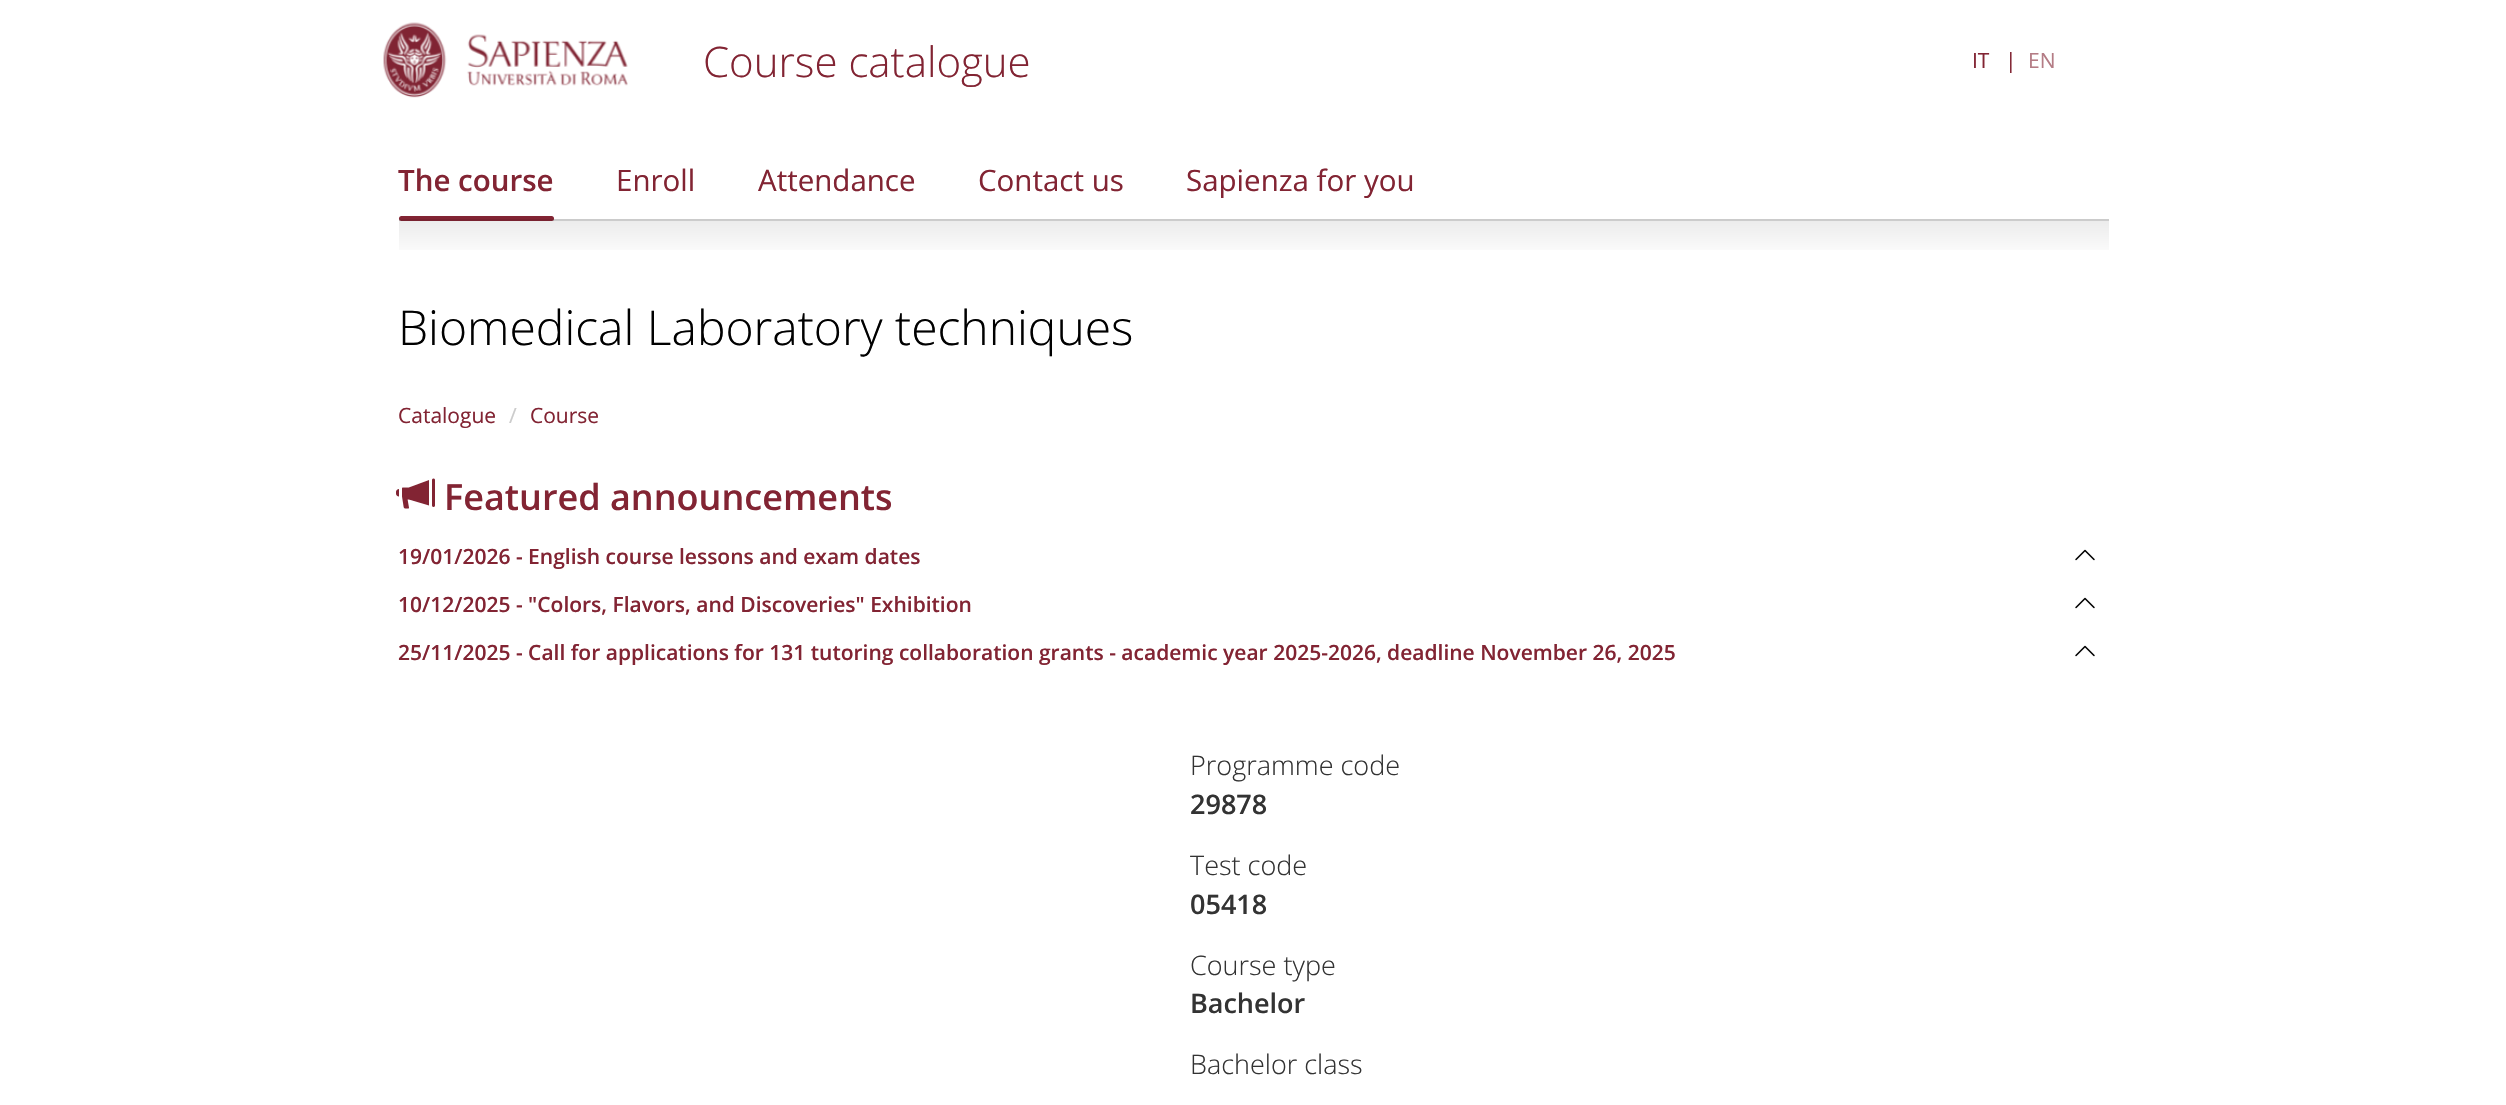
#include "include/core/SkBlurTypes.h"
#include "include/core/SkCanvas.h"
#include "include/core/SkData.h"
#include "include/core/SkFont.h"
#include "include/core/SkFontMgr.h"
#include "include/core/SkImage.h"
#include "include/core/SkMaskFilter.h"
#include "include/core/SkPaint.h"
#include "include/core/SkPathBuilder.h"
#include "include/core/SkTextBlob.h"
#include "include/effects/SkDashPathEffect.h"
#include "include/effects/SkGradientShader.h"
#include "include/utils/SkParsePath.h"

extern sk_sp<SkFontMgr> fontMgr;

void draw(SkCanvas* canvas) {
    SkPaint p;
    p.setAntiAlias(true);
    auto font = [&](const char* family, int weight, float size, bool italic = false) {
        SkFontStyle style(weight, SkFontStyle::kNormal_Width,
            italic ? SkFontStyle::kItalic_Slant : SkFontStyle::kUpright_Slant);
        SkFont result(fontMgr->matchFamilyStyle(family, style), size);
        result.setSubpixel(true);
        return result;
    };
    auto drawPhoto = [&](const char* path, float l, float t, float r, float b) {
        auto image = SkImages::DeferredFromEncodedData(SkData::MakeFromFileName(path));
        canvas->drawImageRect(image, SkRect::MakeLTRB(l, t, r, b), SkSamplingOptions());
    };
    canvas->clear(0xFFFFFFFF);
    drawPhoto("media/1.png", 383, 22, 628, 98);
    auto font1 = font("Open Sans", 300, 42);
    p.setColor(0xFF822433);
    canvas->drawString("Course catalogue", 703, 77, font1, p);
    auto font2 = font("Open Sans", 400, 21);
    canvas->drawString("IT", 1972, 68, font2, p);
    canvas->drawString("|", 2005, 68, font2, p);
    p.setColor(0xFFB47C85);
    canvas->drawString("EN", 2028, 68, font2, p);
    p.setColor(0xFFDDDDDD);
    canvas->drawRect(SkRect::MakeLTRB(399, 219, 2109, 221), p);
    auto font3 = font("Open Sans", 600, 29.5f);
    p.setColor(0xFF822433);
    canvas->drawString("The course", 398, 191, font3, p);
    canvas->drawRoundRect(SkRect::MakeLTRB(399, 216, 554, 221), 2.5f, 2.5f, p);
    auto font4 = font("Open Sans", 400, 29.5f);
    {
        const struct { const char* s; float x, y; } items[] = {
            {"Enroll", 616, 191},
            {"Attendance", 758, 191},
            {"Contact us", 978, 191},
            {"Sapienza for you", 1186, 191},
        };
        for (auto [s, x, y] : items) {
            canvas->drawString(s, x, y, font4, p);
        }
    }
    {
        const SkColor colors[] = {0x14000000, 0x00000000};
        const float stops[] = {0, 1};
        const SkPoint ends[] = {{1254, 219}, {1254, 261}};
        p.setShader(SkGradientShader::MakeLinear(ends, colors, stops, 2, SkTileMode::kClamp));
        p.setAlpha(255);
    }
    canvas->drawRect(SkRect::MakeLTRB(399, 219, 2109, 250), p);
    auto font5 = font("Open Sans", 300, 48);
    p.setShader(nullptr);
    p.setColor(0xFF000000);
    canvas->drawString("Biomedical Laboratory techniques", 398, 345, font5, p);
    p.setColor(0xFF822433);
    canvas->drawString("Catalogue", 398, 423, font2, p);
    p.setColor(0xFFCCCCCC);
    canvas->drawString("/", 509, 423, font2, p);
    p.setColor(0xFF822433);
    canvas->drawString("Course", 530, 423, font2, p);
    drawPhoto("media/2.png", 396, 478, 435, 509);
    auto font6 = font("Open Sans", 600, 36);
    canvas->drawString("Featured announcements", 444, 510, font6, p);
    auto font7 = font("Open Sans", 600, 21);
    canvas->drawString("19/01/2026 - English course lessons and exam dates", 398, 564, font7, p);
    drawPhoto("media/3.png", 2075, 549, 2095, 561);
    canvas->drawString("10/12/2025 - \"Colors, Flavors, and Discoveries\" Exhibition", 398, 612, font7, p);
    drawPhoto("media/3.png", 2075, 597, 2095, 609);
    canvas->drawString("25/11/2025 - Call for applications for 131 tutoring collaboration grants - academic year 2025-2026, deadline November 26, 2025", 398, 660, font7, p);
    drawPhoto("media/3.png", 2075, 645, 2095, 657);
    auto font8 = font("Open Sans", 300, 27);
    p.setColor(0xFF333333);
    canvas->drawString("Programme code", 1190, 775, font8, p);
    auto font9 = font("Open Sans", 600, 27);
    canvas->drawString("29878", 1190, 814, font9, p);
    canvas->drawString("Test code", 1190, 875, font8, p);
    canvas->drawString("05418", 1190, 914, font9, p);
    canvas->drawString("Course type", 1190, 975, font8, p);
    canvas->drawString("Bachelor", 1190, 1013, font9, p);
    canvas->drawString("Bachelor class", 1190, 1074, font8, p);
}
